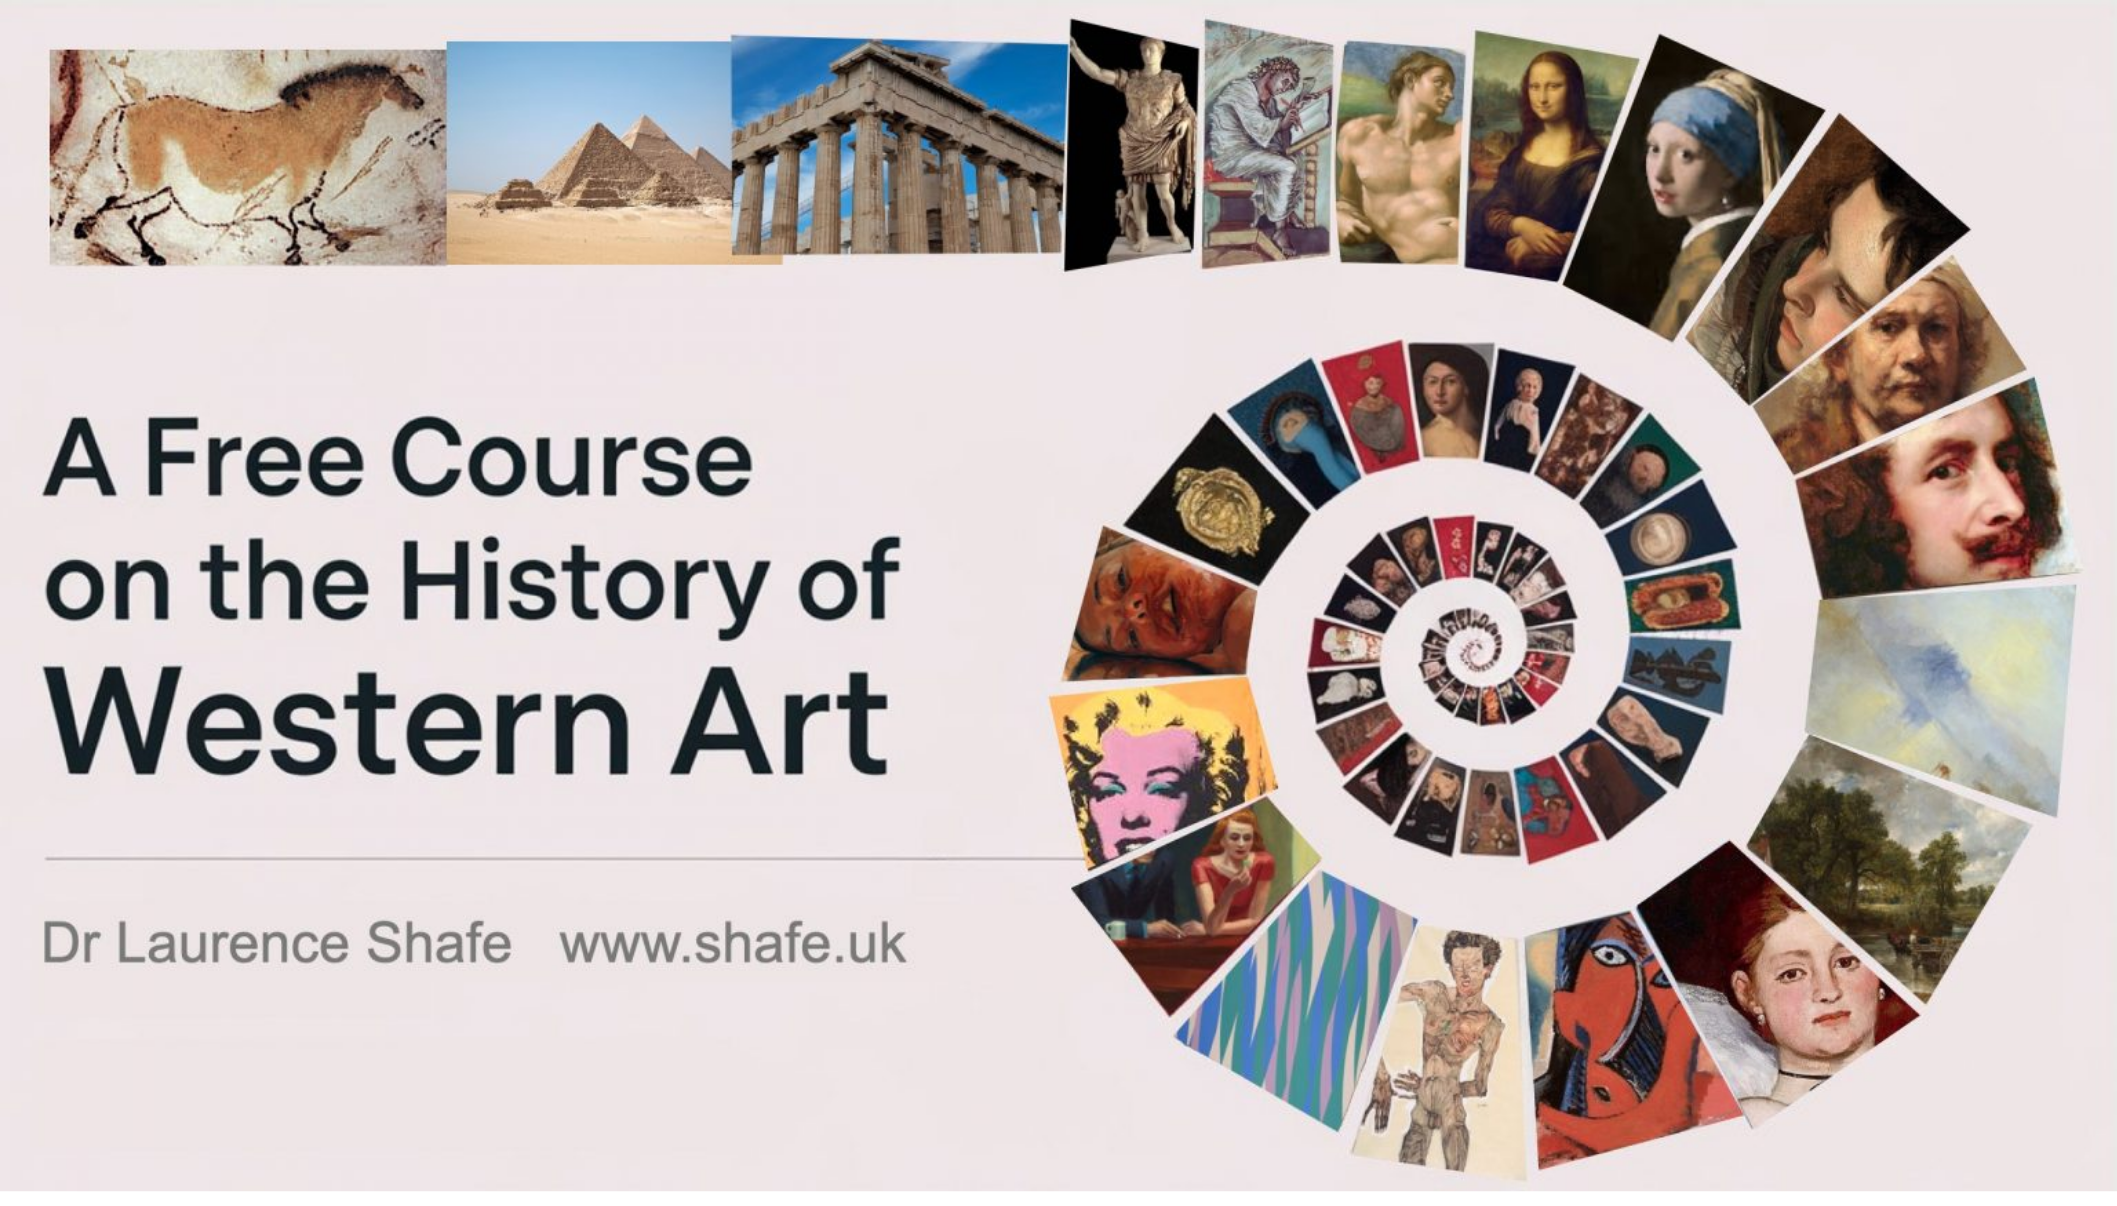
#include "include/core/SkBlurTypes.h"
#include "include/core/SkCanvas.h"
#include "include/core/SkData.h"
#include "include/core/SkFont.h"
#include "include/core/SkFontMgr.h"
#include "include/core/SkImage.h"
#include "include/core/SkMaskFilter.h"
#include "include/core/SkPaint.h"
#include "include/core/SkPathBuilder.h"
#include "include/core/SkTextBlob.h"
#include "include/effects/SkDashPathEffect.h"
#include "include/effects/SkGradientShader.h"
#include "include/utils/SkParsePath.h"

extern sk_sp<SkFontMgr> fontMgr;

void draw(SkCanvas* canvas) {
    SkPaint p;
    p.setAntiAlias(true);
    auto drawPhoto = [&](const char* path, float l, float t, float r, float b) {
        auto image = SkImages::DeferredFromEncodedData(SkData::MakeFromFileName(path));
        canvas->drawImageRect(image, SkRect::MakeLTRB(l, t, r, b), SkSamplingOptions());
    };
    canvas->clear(0xFFFFFFFF);
    drawPhoto("media/1.png", 0, 0, 2117, 1192);
}
